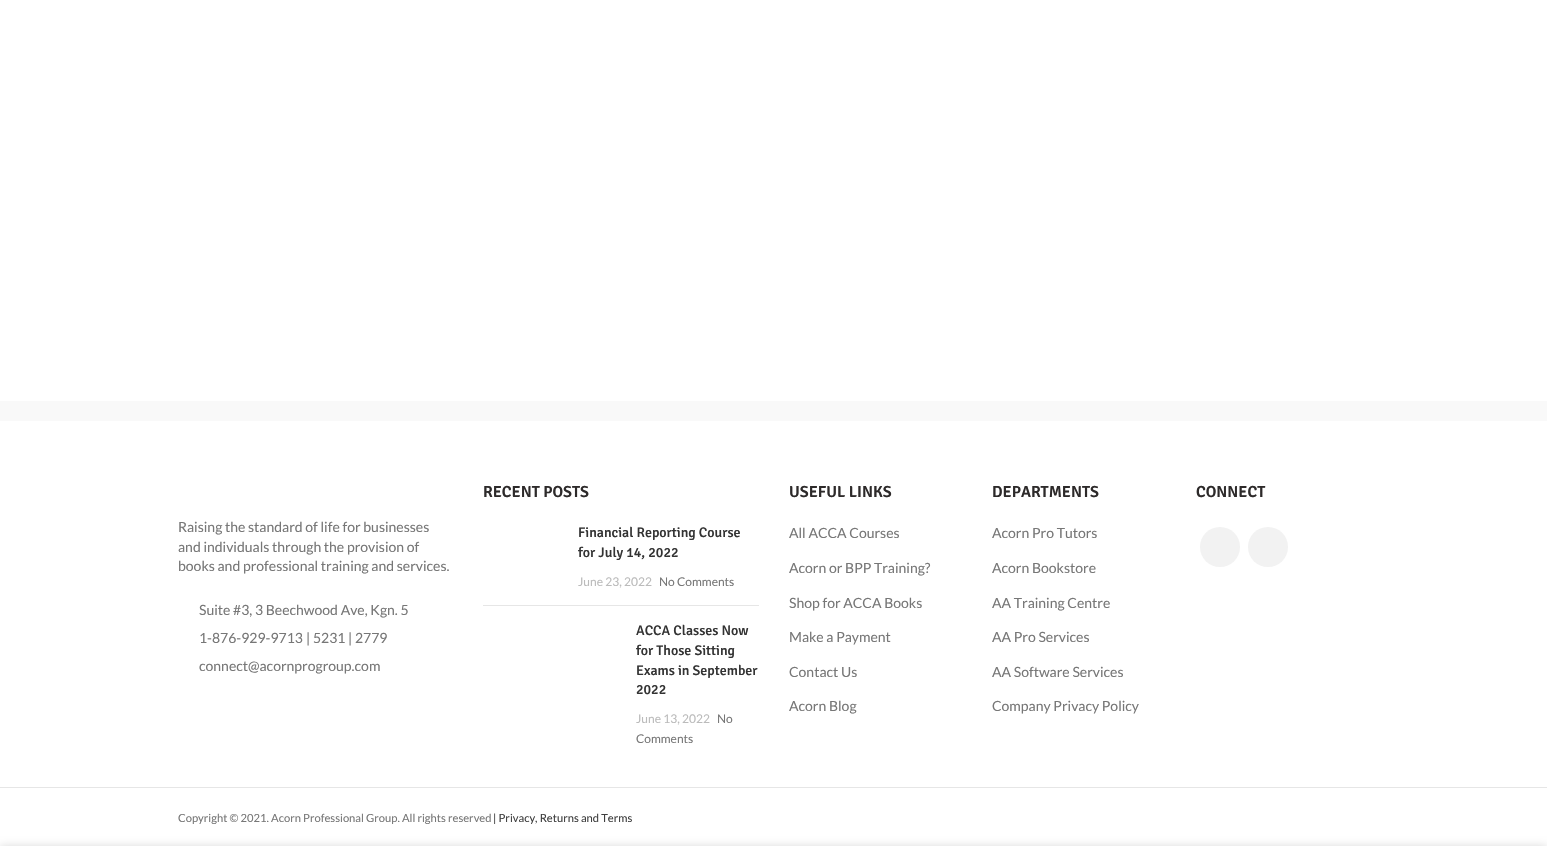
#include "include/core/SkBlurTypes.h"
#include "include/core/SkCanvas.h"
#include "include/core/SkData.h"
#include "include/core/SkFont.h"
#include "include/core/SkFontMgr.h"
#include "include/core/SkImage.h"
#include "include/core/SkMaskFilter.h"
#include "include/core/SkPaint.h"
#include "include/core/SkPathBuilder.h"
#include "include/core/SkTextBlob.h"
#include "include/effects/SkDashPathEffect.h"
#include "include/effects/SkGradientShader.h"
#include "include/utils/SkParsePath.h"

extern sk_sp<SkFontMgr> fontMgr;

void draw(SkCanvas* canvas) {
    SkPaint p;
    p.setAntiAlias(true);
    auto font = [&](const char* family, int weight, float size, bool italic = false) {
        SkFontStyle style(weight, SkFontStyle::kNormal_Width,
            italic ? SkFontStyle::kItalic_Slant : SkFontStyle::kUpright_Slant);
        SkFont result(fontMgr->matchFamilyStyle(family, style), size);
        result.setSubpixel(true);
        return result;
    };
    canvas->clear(0xFFFFFFFF);
    p.setColor(0xFFF9F9F9);
    canvas->drawRect(SkRect::MakeLTRB(0, 401, 1547, 421), p);
    auto font1 = font("Signika", 600, 16);
    p.setColor(0xFF2D2A2A);
    canvas->drawString("RECENT POSTS", 483, 497, font1, p);
    p.setColor(0xFFE6E6E6);
    canvas->drawRect(SkRect::MakeLTRB(483, 605, 759, 606), p);
    auto font2 = font("Signika", 500, 14);
    p.setColor(0xFF333333);
    canvas->drawString("Financial Reporting Course", 578, 537, font2, p);
    canvas->drawString("for July 14, 2022", 578, 557, font2, p);
    auto font3 = font("Lato", 400, 12);
    p.setColor(0xFFBBBBBB);
    canvas->drawString("June 23, 2022", 578, 586, font3, p);
    p.setColor(0xFF777777);
    canvas->drawString("No Comments", 659, 586, font3, p);
    p.setColor(0xFF333333);
    {
        const struct { const char* s; float x, y; } items[] = {
            {"ACCA Classes Now", 636, 635},
            {"for Those Sitting", 636, 655},
            {"Exams in September", 636, 675},
            {"2022", 636, 694},
        };
        for (auto [s, x, y] : items) {
            canvas->drawString(s, x, y, font2, p);
        }
    }
    p.setColor(0xFFBBBBBB);
    canvas->drawString("June 13, 2022", 636, 723, font3, p);
    p.setColor(0xFF777777);
    canvas->drawString("No", 717, 723, font3, p);
    canvas->drawString("Comments", 636, 743, font3, p);
    p.setColor(0xFF2D2A2A);
    canvas->drawString("USEFUL LINKS", 789, 497, font1, p);
    auto font4 = font("Lato", 400, 14);
    p.setColor(0xFF777777);
    {
        const struct { const char* s; float x, y; } items[] = {
            {"All ACCA Courses", 789, 538},
            {"Acorn or BPP Training?", 789, 573},
            {"Shop for ACCA Books", 789, 608},
            {"Make a Payment", 789, 642},
            {"Contact Us", 789, 677},
            {"Acorn Blog", 789, 711},
        };
        for (auto [s, x, y] : items) {
            canvas->drawString(s, x, y, font4, p);
        }
    }
    p.setColor(0xFF2D2A2A);
    canvas->drawString("DEPARTMENTS", 992, 497, font1, p);
    p.setColor(0xFF777777);
    {
        const struct { const char* s; float x, y; } items[] = {
            {"Acorn Pro Tutors", 992, 538},
            {"Acorn Bookstore", 992, 573},
            {"AA Training Centre", 992, 608},
            {"AA Pro Services", 992, 642},
            {"AA Software Services", 992, 677},
            {"Company Privacy Policy", 992, 711},
        };
        for (auto [s, x, y] : items) {
            canvas->drawString(s, x, y, font4, p);
        }
    }
    p.setColor(0xFF2D2A2A);
    canvas->drawString("CONNECT", 1196, 497, font1, p);
    p.setColor(0xFFF2F2F2);
    canvas->drawCircle(1220, 547, 20, p);
    canvas->drawCircle(1268, 547, 20, p);
    p.setColor(0xFF777777);
    {
        const struct { const char* s; float x, y; } items[] = {
            {"Raising the standard of life for businesses", 178, 532},
            {"and individuals through the provision of", 178, 552},
            {"books and professional training and services.", 178, 571},
            {"Suite #3, 3 Beechwood Ave, Kgn. 5", 199, 615},
            {"1-876-929-9713", 199, 643},
            {"|", 306, 643},
            {"5231", 313, 643},
            {"|", 348, 643},
            {"2779", 355, 643},
            {"connect@acornprogroup.com", 199, 671},
        };
        for (auto [s, x, y] : items) {
            canvas->drawString(s, x, y, font4, p);
        }
    }
    p.setColor(0xFFE6E6E6);
    canvas->drawRect(SkRect::MakeLTRB(0, 787, 1547, 788), p);
    auto font5 = font("Lato", 400, 11.2f);
    p.setColor(0xFF777777);
    canvas->drawString("Copyright © 2021. Acorn Professional Group. All rights reserved", 178, 822, font5, p);
    p.setColor(0xFF3F3F3F);
    canvas->drawString("| Privacy, Returns and Terms", 493, 822, font5, p);
    p.setColor(0x24000000);
    p.setMaskFilter(SkMaskFilter::MakeBlur(kNormal_SkBlurStyle, 4.5f));
    canvas->drawRect(SkRect::MakeLTRB(0, 846, 1547, 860), p);
    p.setMaskFilter(nullptr);
}
